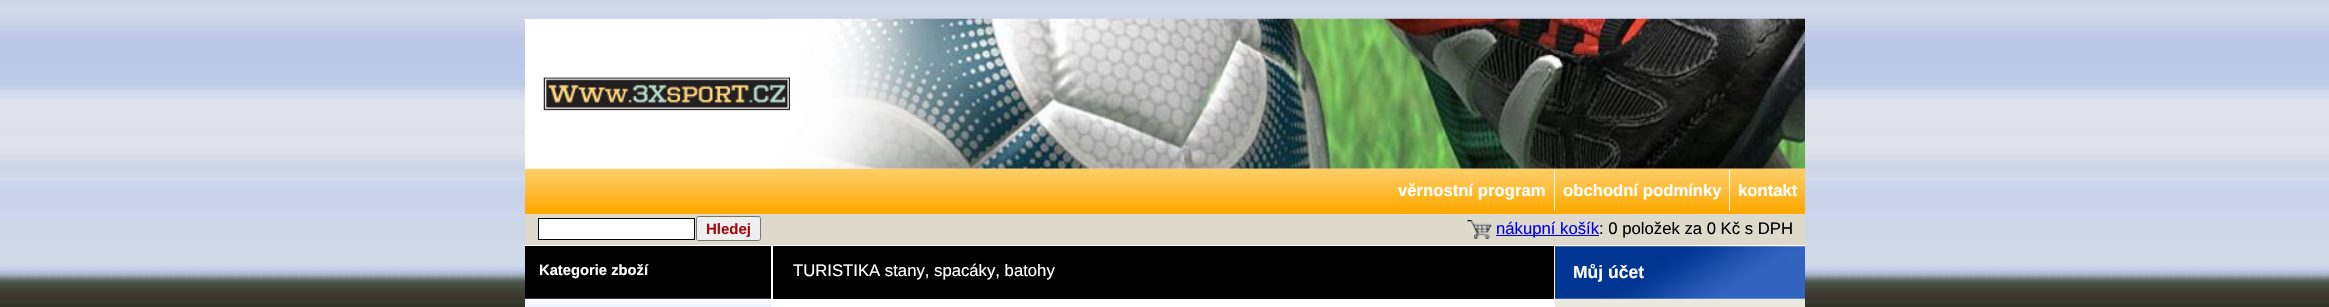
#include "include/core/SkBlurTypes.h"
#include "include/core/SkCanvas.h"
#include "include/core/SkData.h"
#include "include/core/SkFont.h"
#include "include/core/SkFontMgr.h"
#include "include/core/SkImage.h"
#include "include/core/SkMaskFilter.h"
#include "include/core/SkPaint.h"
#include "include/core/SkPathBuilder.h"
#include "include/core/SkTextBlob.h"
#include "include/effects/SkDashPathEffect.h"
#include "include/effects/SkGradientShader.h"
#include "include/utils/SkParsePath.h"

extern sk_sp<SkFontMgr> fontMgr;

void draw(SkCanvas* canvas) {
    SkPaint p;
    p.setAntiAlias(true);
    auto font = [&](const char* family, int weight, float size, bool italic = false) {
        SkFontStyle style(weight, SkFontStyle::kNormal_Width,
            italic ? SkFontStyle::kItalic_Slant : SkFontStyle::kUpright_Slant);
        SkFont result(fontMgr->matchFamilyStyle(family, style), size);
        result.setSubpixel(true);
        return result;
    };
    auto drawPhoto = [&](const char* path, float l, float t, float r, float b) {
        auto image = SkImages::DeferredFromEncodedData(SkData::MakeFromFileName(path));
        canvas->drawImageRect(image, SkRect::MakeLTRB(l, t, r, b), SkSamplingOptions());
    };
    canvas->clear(0xFFFFFFFF);
    drawPhoto("media/1.png", 0, 0, 2329, 307);
    p.setColor(0xFFFFFFFF);
    canvas->drawRect(SkRect::MakeLTRB(525, 19, 1805, 307), p);
    drawPhoto("media/3.png", 772, 18, 1805, 169);
    drawPhoto("media/2.png", 543, 77, 790, 111);
    p.setColor(0xFFFFAA00);
    canvas->drawRect(SkRect::MakeLTRB(525, 209, 1805, 214), p);
    drawPhoto("media/4.png", 525, 168, 1805, 209);
    auto font1 = font("Liberation Sans", 700, 16.7f);
    p.setColor(0xFFFFFFFF);
    canvas->drawString("věrnostní program", 1398, 196, font1, p);
    canvas->drawRect(SkRect::MakeLTRB(1554, 170, 1555, 211), p);
    canvas->drawString("obchodní podmínky", 1563, 196, font1, p);
    canvas->drawRect(SkRect::MakeLTRB(1729, 170, 1730, 211), p);
    canvas->drawString("kontakt", 1738, 196, font1, p);
    p.setColor(0xFFDDDACC);
    canvas->drawRect(SkRect::MakeLTRB(525, 214, 1805, 245), p);
    p.setColor(0xFFFFFFFF);
    canvas->drawRect(SkRect::MakeLTRB(538.5f, 218.5f, 694.5f, 239.5f), p);
    p.setStyle(SkPaint::kStroke_Style);
    p.setStrokeWidth(1);
    p.setColor(0xFF000000);
    canvas->drawRect(SkRect::MakeLTRB(538.5f, 218.5f, 694.5f, 239.5f), p);
    p.setStyle(SkPaint::kFill_Style);
    p.setColor(0xFFEFEFEF);
    canvas->drawRoundRect(SkRect::MakeLTRB(696.5f, 216.5f, 760.5f, 240.5f), 2, 2, p);
    p.setStyle(SkPaint::kStroke_Style);
    p.setColor(0xFF767676);
    canvas->drawRoundRect(SkRect::MakeLTRB(696.5f, 216.5f, 760.5f, 240.5f), 2, 2, p);
    auto font2 = font("Liberation Sans", 700, 15);
    p.setStyle(SkPaint::kFill_Style);
    p.setColor(0xFFA10C0E);
    canvas->drawString("Hledej", 706, 234, font2, p);
    drawPhoto("media/5.png", 1467, 220, 1492, 239);
    p.setColor(0xFF0000EE);
    canvas->drawRect(SkRect::MakeLTRB(1496, 235, 1599, 236), p);
    auto font3 = font("Liberation Sans", 400, 16.7f);
    canvas->drawString("nákupní košík", 1496, 234, font3, p);
    p.setColor(0xFF000000);
    canvas->drawString(": 0 položek za 0 Kč s DPH", 1599, 234, font3, p);
    canvas->drawRect(SkRect::MakeLTRB(525, 246, 771, 299), p);
    auto font4 = font("Liberation Sans", 700, 14.75f);
    p.setColor(0xFFFFFFFF);
    canvas->drawString("Kategorie zboží", 539, 275, font4, p);
    drawPhoto("media/6.png", 525, 298, 772, 307);
    p.setColor(0xFF000000);
    canvas->drawRect(SkRect::MakeLTRB(773, 246, 1554, 299), p);
    p.setColor(0xFFFFFFFF);
    canvas->drawString("TURISTIKA stany, spacáky, batohy", 793, 276, font3, p);
    drawPhoto("media/7.png", 1555, 246, 1805, 299);
    auto font5 = font("Liberation Sans", 700, 17.5f);
    canvas->drawString("Můj účet", 1573, 278, font5, p);
    p.setColor(0xFFEAE8DF);
    canvas->drawRect(SkRect::MakeLTRB(1555, 299, 1805, 307), p);
}
